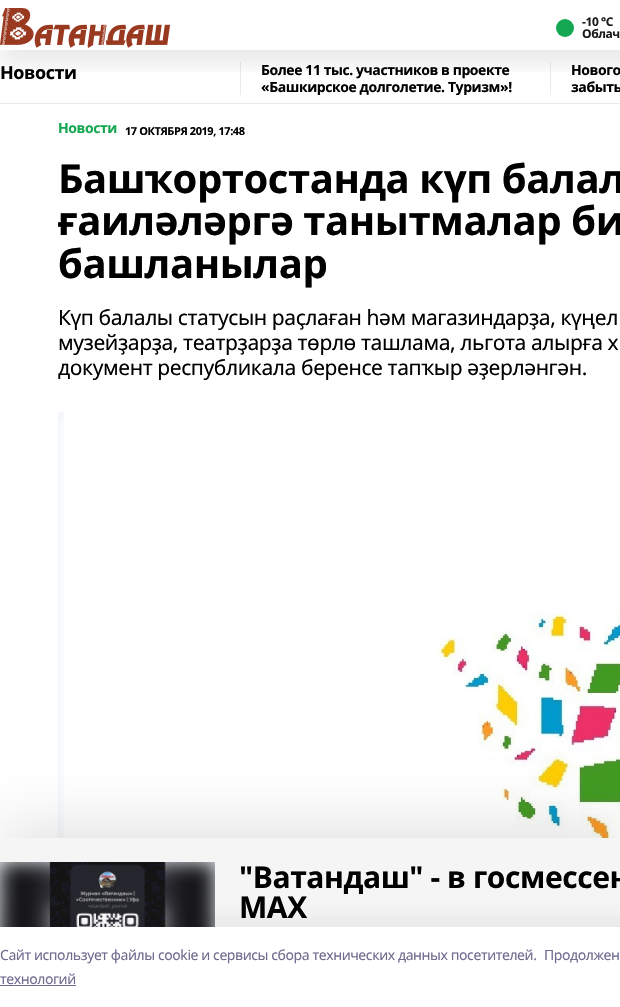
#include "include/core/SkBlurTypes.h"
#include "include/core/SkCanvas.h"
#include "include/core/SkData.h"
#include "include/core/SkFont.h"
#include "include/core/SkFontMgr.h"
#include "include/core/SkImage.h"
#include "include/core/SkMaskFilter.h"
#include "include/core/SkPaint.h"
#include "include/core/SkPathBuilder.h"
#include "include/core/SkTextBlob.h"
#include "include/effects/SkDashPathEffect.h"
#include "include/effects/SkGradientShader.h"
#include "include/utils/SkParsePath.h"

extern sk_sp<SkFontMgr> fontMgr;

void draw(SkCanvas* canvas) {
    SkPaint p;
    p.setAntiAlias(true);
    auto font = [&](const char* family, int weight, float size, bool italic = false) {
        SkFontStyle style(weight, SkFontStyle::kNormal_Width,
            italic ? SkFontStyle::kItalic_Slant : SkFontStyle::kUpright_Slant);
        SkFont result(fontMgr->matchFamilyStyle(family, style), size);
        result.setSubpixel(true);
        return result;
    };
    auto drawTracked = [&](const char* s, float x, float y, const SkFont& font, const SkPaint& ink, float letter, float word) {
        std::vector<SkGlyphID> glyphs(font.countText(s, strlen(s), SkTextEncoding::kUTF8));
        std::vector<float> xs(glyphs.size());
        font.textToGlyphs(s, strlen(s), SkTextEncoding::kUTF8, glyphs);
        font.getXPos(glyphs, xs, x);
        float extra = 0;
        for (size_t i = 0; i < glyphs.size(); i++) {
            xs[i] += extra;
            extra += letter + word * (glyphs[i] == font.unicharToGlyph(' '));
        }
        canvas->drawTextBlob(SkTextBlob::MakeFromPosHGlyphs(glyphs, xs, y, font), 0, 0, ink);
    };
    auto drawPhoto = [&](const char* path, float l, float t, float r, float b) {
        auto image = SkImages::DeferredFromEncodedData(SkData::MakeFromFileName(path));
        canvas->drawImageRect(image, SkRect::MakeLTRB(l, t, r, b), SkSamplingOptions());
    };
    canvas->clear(0xFFFFFFFF);
    p.setColor(0xFFEAEAEA);
    canvas->drawRect(SkRect::MakeLTRB(240, 62, 241, 95), p);
    canvas->drawRect(SkRect::MakeLTRB(550, 62, 551, 95), p);
    canvas->save();
    canvas->clipRect(SkRect::MakeLTRB(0, 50, 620, 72));
    p.setColor(0x14000000);
    p.setMaskFilter(SkMaskFilter::MakeBlur(kNormal_SkBlurStyle, 10));
    canvas->drawRect(SkRect::MakeLTRB(0, 15, 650, 65), p);
    p.setMaskFilter(nullptr);
    canvas->restore();
    drawPhoto("media/1.png", 0, 8, 170, 48);
    p.setColor(0xFF14A852);
    canvas->drawCircle(565, 28, 9, p);
    auto font1 = font("Noto Sans", 700, 12);
    p.setColor(0xFF1A1A1A);
    drawTracked("-10 °С", 582, 26, font1, p, -0.42f, 0);
    drawTracked("Облач", 582, 38, font1, p, -0.42f, 0);
    p.setColor(0xFFEAEAEA);
    canvas->drawRect(SkRect::MakeLTRB(0, 103, 620, 104), p);
    auto font2 = font("Noto Sans", 700, 18);
    p.setColor(0xFF000000);
    drawTracked("Новости", 0, 79, font2, p, -0.42f, 0);
    auto font3 = font("Noto Sans", 700, 14);
    drawTracked("Более 11 тыс. участников в проекте", 261, 75, font3, p, -0.42f, 0);
    canvas->save();
    canvas->clipRect(SkRect::MakeLTRB(241, 62, 550, 95));
    drawTracked("«Башкирское долголетие. Туризм»!", 261, 92, font3, p, -0.42f, 0);
    canvas->restore();
    drawTracked("Нового", 571, 75, font3, p, -0.42f, 0);
    drawTracked("забыть", 571, 92, font3, p, -0.42f, 0);
    p.setColor(0xFF14A852);
    drawTracked("Новости", 58, 133, font3, p, -0.42f, 0);
    auto font4 = font("Noto Sans", 700, 11);
    p.setColor(0xFF000000);
    drawTracked("17 ОКТЯБРЯ 2019, 17:48", 125, 135, font4, p, -0.42f, 0);
    auto font5 = font("Noto Sans", 700, 40);
    {
        const struct { const char* s; float x, y; } items[] = {
            {"Башҡортостанда күп балал", 58, 193},
            {"ғаиләләргә танытмалар би", 58, 235},
            {"башланылар", 58, 278},
        };
        for (auto [s, x, y] : items) {
            drawTracked(s, x, y, font5, p, -0.42f, 0);
        }
    }
    auto font6 = font("Noto Sans", 400, 21);
    {
        const struct { const char* s; float x, y; } items[] = {
            {"Күп балалы статусын раҫлаған һәм магазиндарҙа, күңел", 58, 325},
            {"музейҙарҙа, театрҙарҙа төрлө ташлама, льгота алырға х", 58, 350},
            {"документ республикала беренсе тапҡыр әҙерләнгән.", 58, 375},
        };
        for (auto [s, x, y] : items) {
            drawTracked(s, x, y, font6, p, -0.42f, 0);
        }
    }
    p.setColor(0xFFEDF2F7);
    canvas->drawRect(SkRect::MakeLTRB(58, 412, 64, 838), p);
    drawPhoto("media/2.png", 58, 412, 64, 838);
    drawPhoto("media/3.png", 64, 412, 620, 838);
    p.setColor(0x1F000000);
    p.setMaskFilter(SkMaskFilter::MakeBlur(kNormal_SkBlurStyle, 30));
    canvas->drawRect(SkRect::MakeLTRB(0, 828, 620, 997), p);
    p.setMaskFilter(nullptr);
    p.setColor(0xFFF5F5F5);
    canvas->drawRect(SkRect::MakeLTRB(0, 838, 620, 927), p);
    p.setColor(0xFFEDF2F7);
    canvas->drawRect(SkRect::MakeLTRB(0, 862, 215, 927), p);
    drawPhoto("media/4.png", 0, 862, 215, 927);
    drawPhoto("media/5.png", 49, 862, 166, 927);
    auto font7 = font("Noto Sans", 700, 30);
    p.setColor(0xFF000000);
    drawTracked("\"Ватандаш\" - в госмессен", 239, 888, font7, p, -0.42f, 0);
    drawTracked("МАХ", 239, 918, font7, p, -0.42f, 0);
    p.setColor(0x1414142B);
    p.setMaskFilter(SkMaskFilter::MakeBlur(kNormal_SkBlurStyle, 11.5f));
    canvas->drawRect(SkRect::MakeLTRB(0, 921, 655, 1001), p);
    p.setMaskFilter(nullptr);
    p.setColor(0xFFFFFFFF);
    canvas->drawRect(SkRect::MakeLTRB(0, 927, 620, 1007), p);
    auto font8 = font("Noto Sans", 400, 14);
    p.setColor(0xFF6F6C90);
    {
        const struct { const char* s; float x, y; } items[] = {
            {"Cайт использует файлы cookie и сервисы сбора технических данных посетителей.", 0, 960},
            {"Продолжен", 544, 960},
            {"технологий", 0, 984},
        };
        for (auto [s, x, y] : items) {
            drawTracked(s, x, y, font8, p, -0.42f, 0);
        }
    }
    canvas->drawRect(SkRect::MakeLTRB(0, 985, 76, 986), p);
}
